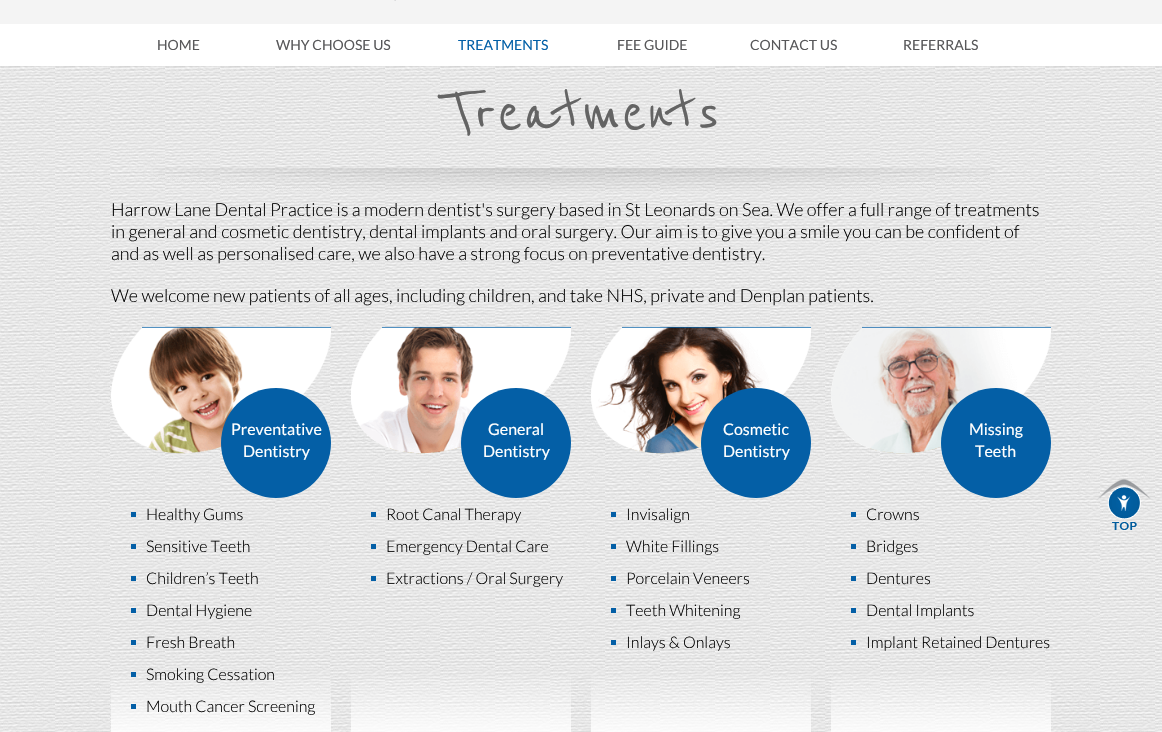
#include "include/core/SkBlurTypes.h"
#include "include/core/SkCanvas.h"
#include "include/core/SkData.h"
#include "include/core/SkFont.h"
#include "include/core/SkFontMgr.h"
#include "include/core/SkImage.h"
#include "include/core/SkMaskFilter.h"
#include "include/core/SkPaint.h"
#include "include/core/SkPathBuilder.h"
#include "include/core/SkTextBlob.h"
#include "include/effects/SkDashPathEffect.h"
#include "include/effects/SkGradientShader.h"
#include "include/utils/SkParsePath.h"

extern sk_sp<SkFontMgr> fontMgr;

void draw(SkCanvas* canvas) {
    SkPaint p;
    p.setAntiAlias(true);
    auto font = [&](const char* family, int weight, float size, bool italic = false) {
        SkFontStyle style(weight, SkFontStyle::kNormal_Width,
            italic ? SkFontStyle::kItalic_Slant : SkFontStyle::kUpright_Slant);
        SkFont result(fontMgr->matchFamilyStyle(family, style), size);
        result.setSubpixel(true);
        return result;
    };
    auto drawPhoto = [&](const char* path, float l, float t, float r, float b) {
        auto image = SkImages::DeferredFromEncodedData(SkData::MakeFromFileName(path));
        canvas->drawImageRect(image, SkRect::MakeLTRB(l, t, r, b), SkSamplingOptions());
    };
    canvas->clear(0xFFFFFFFF);
    drawPhoto("media/1.png", 0, 66, 1162, 732);
    p.setColor(0xFFF4F4F4);
    canvas->drawRect(SkRect::MakeLTRB(0, 0, 1162, 24), p);
    drawPhoto("media/2.png", 394, 0, 396, 1);
    auto font1 = font("Lato", 400, 14);
    p.setColor(0xFF58585A);
    canvas->drawString("HOME", 157, 50, font1, p);
    canvas->drawString("WHY CHOOSE US", 276, 50, font1, p);
    p.setColor(0xFF0360A7);
    canvas->drawString("TREATMENTS", 458, 50, font1, p);
    p.setColor(0xFF58585A);
    {
        const struct { const char* s; float x, y; } items[] = {
            {"FEE GUIDE", 617, 50},
            {"CONTACT US", 750, 50},
            {"REFERRALS", 903, 50},
        };
        for (auto [s, x, y] : items) {
            canvas->drawString(s, x, y, font1, p);
        }
    }
    auto font2 = font("Reenie Beanie", 500, 74);
    p.setColor(0xFF646464);
    canvas->drawString("Treatments", 442, 132, font2, p);
    drawPhoto("media/3.png", 153, 168, 995, 191);
    auto font3 = font("Lato", 300, 18);
    p.setColor(0xFF000000);
    {
        const struct { const char* s; float x, y; } items[] = {
            {"Harrow Lane Dental Practice is a modern dentist's surgery based in St Leonards on Sea. We offer a full range of treatments", 111, 216},
            {"in general and cosmetic dentistry, dental implants and oral surgery. Our aim is to give you a smile you can be confident of", 111, 238},
            {"and as well as personalised care, we also have a strong focus on preventative dentistry.", 111, 260},
            {"We welcome new patients of all ages, including children, and take NHS, private and Denplan patients.", 111, 302},
        };
        for (auto [s, x, y] : items) {
            canvas->drawString(s, x, y, font3, p);
        }
    }
    drawPhoto("media/4.png", 111, 326, 331, 454);
    p.setColor(0xFF045FA6);
    canvas->drawCircle(276, 443, 55, p);
    auto font4 = font("Lato", 400, 16);
    p.setColor(0xFFFFFFFF);
    canvas->drawString("Preventative", 231, 435, font4, p);
    canvas->drawString("Dentistry", 243, 457, font4, p);
    drawPhoto("media/5.png", 111, 676, 331, 732);
    p.setColor(0xFF045FA6);
    canvas->drawRect(SkRect::MakeLTRB(131, 512, 136, 517), p);
    auto font5 = font("Lato", 300, 16);
    p.setColor(0xFF000000);
    canvas->drawString("Healthy Gums", 146, 520, font5, p);
    p.setColor(0xFF045FA6);
    canvas->drawRect(SkRect::MakeLTRB(131, 544, 136, 549), p);
    p.setColor(0xFF000000);
    canvas->drawString("Sensitive Teeth", 146, 552, font5, p);
    p.setColor(0xFF045FA6);
    canvas->drawRect(SkRect::MakeLTRB(131, 576, 136, 581), p);
    p.setColor(0xFF000000);
    canvas->drawString("Children’s Teeth", 146, 584, font5, p);
    p.setColor(0xFF045FA6);
    canvas->drawRect(SkRect::MakeLTRB(131, 608, 136, 613), p);
    p.setColor(0xFF000000);
    canvas->drawString("Dental Hygiene", 146, 616, font5, p);
    p.setColor(0xFF045FA6);
    canvas->drawRect(SkRect::MakeLTRB(131, 640, 136, 645), p);
    p.setColor(0xFF000000);
    canvas->drawString("Fresh Breath", 146, 648, font5, p);
    p.setColor(0xFF045FA6);
    canvas->drawRect(SkRect::MakeLTRB(131, 672, 136, 677), p);
    p.setColor(0xFF000000);
    canvas->drawString("Smoking Cessation", 146, 680, font5, p);
    p.setColor(0xFF045FA6);
    canvas->drawRect(SkRect::MakeLTRB(131, 704, 136, 709), p);
    p.setColor(0xFF000000);
    canvas->drawString("Mouth Cancer Screening", 146, 712, font5, p);
    drawPhoto("media/6.png", 351, 326, 571, 454);
    p.setColor(0xFF045FA6);
    canvas->drawCircle(516, 443, 55, p);
    p.setColor(0xFFFFFFFF);
    canvas->drawString("General", 488, 435, font4, p);
    canvas->drawString("Dentistry", 483, 457, font4, p);
    drawPhoto("media/7.png", 351, 676, 571, 732);
    p.setColor(0xFF045FA6);
    canvas->drawRect(SkRect::MakeLTRB(371, 512, 376, 517), p);
    p.setColor(0xFF000000);
    canvas->drawString("Root Canal Therapy", 386, 520, font5, p);
    p.setColor(0xFF045FA6);
    canvas->drawRect(SkRect::MakeLTRB(371, 544, 376, 549), p);
    p.setColor(0xFF000000);
    canvas->drawString("Emergency Dental Care", 386, 552, font5, p);
    p.setColor(0xFF045FA6);
    canvas->drawRect(SkRect::MakeLTRB(371, 576, 376, 581), p);
    p.setColor(0xFF000000);
    canvas->drawString("Extractions / Oral Surgery", 386, 584, font5, p);
    drawPhoto("media/8.png", 591, 326, 811, 454);
    p.setColor(0xFF045FA6);
    canvas->drawCircle(756, 443, 55, p);
    p.setColor(0xFFFFFFFF);
    canvas->drawString("Cosmetic", 723, 435, font4, p);
    canvas->drawString("Dentistry", 723, 457, font4, p);
    drawPhoto("media/9.png", 591, 676, 811, 732);
    p.setColor(0xFF045FA6);
    canvas->drawRect(SkRect::MakeLTRB(611, 512, 616, 517), p);
    p.setColor(0xFF000000);
    canvas->drawString("Invisalign", 626, 520, font5, p);
    p.setColor(0xFF045FA6);
    canvas->drawRect(SkRect::MakeLTRB(611, 544, 616, 549), p);
    p.setColor(0xFF000000);
    canvas->drawString("White Fillings", 626, 552, font5, p);
    p.setColor(0xFF045FA6);
    canvas->drawRect(SkRect::MakeLTRB(611, 576, 616, 581), p);
    p.setColor(0xFF000000);
    canvas->drawString("Porcelain Veneers", 626, 584, font5, p);
    p.setColor(0xFF045FA6);
    canvas->drawRect(SkRect::MakeLTRB(611, 608, 616, 613), p);
    p.setColor(0xFF000000);
    canvas->drawString("Teeth Whitening", 626, 616, font5, p);
    p.setColor(0xFF045FA6);
    canvas->drawRect(SkRect::MakeLTRB(611, 640, 616, 645), p);
    p.setColor(0xFF000000);
    canvas->drawString("Inlays & Onlays", 626, 648, font5, p);
    drawPhoto("media/10.png", 831, 326, 1051, 454);
    p.setColor(0xFF045FA6);
    canvas->drawCircle(996, 443, 55, p);
    p.setColor(0xFFFFFFFF);
    canvas->drawString("Missing", 969, 435, font4, p);
    canvas->drawString("Teeth", 975, 457, font4, p);
    drawPhoto("media/11.png", 831, 676, 1051, 732);
    p.setColor(0xFF045FA6);
    canvas->drawRect(SkRect::MakeLTRB(851, 512, 856, 517), p);
    p.setColor(0xFF000000);
    canvas->drawString("Crowns", 866, 520, font5, p);
    p.setColor(0xFF045FA6);
    canvas->drawRect(SkRect::MakeLTRB(851, 544, 856, 549), p);
    p.setColor(0xFF000000);
    canvas->drawString("Bridges", 866, 552, font5, p);
    p.setColor(0xFF045FA6);
    canvas->drawRect(SkRect::MakeLTRB(851, 576, 856, 581), p);
    p.setColor(0xFF000000);
    canvas->drawString("Dentures", 866, 584, font5, p);
    p.setColor(0xFF045FA6);
    canvas->drawRect(SkRect::MakeLTRB(851, 608, 856, 613), p);
    p.setColor(0xFF000000);
    canvas->drawString("Dental Implants", 866, 616, font5, p);
    p.setColor(0xFF045FA6);
    canvas->drawRect(SkRect::MakeLTRB(851, 640, 856, 645), p);
    p.setColor(0xFF000000);
    canvas->drawString("Implant Retained Dentures", 866, 648, font5, p);
    drawPhoto("media/12.png", 1096, 479, 1151, 532);
}
